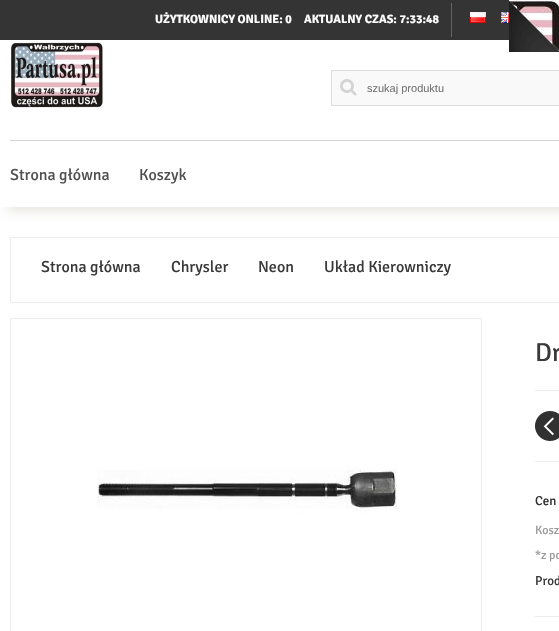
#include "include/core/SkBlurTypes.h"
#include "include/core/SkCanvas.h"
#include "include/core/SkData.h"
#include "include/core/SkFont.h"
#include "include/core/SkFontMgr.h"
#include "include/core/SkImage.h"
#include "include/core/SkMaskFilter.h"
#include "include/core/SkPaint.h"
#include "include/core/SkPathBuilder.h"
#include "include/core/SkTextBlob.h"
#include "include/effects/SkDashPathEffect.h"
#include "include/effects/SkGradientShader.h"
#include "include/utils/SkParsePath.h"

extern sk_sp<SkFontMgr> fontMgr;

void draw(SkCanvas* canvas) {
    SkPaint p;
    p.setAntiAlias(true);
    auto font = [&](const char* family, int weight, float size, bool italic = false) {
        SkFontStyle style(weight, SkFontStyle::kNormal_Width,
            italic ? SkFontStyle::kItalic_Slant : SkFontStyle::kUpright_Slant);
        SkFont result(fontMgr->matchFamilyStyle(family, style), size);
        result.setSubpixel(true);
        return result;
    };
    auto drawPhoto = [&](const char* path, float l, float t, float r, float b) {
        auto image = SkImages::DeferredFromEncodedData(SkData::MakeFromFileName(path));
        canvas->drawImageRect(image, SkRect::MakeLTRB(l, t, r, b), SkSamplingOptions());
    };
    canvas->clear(0xFFFFFFFF);
    canvas->save();
    canvas->clipRect(SkRect::MakeLTRB(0, 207, 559, 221));
    p.setColor(0xFFE8E6E1);
    p.setMaskFilter(SkMaskFilter::MakeBlur(kNormal_SkBlurStyle, 5));
    canvas->drawRect(SkRect::MakeLTRB(8, 20, 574, 211), p);
    p.setMaskFilter(nullptr);
    canvas->restore();
    drawPhoto("media/1.png", 509, 0, 559, 50);
    drawPhoto("media/2.png", 509, 1, 559, 52);
    p.setColor(0xFF343434);
    canvas->drawRect(SkRect::MakeLTRB(0, 0, 509, 40), p);
    auto font1 = font("Signika", 700, 12);
    p.setColor(0xFFFFFFFF);
    canvas->drawString("UŻYTKOWNICY ONLINE: 0", 155, 23, font1, p);
    canvas->drawString("AKTUALNY CZAS: 7:33:48", 304, 23, font1, p);
    p.setColor(0xFF626262);
    canvas->drawRect(SkRect::MakeLTRB(451, 3, 452, 37), p);
    drawPhoto("media/3.png", 470, 12, 486, 23);
    drawPhoto("media/4.png", 501, 12, 509, 23);
    drawPhoto("media/5.png", 10, 42, 104, 108);
    p.setColor(0xFFF9F9F9);
    canvas->drawRect(SkRect::MakeLTRB(332, 71, 559, 105), p);
    drawPhoto("media/6.png", 340, 79, 357, 96);
    {
        const struct { float l, t, r, b; SkColor color; } items[] = {
            {331, 70, 559, 71, 0xFFDEDEDE},
            {331, 105, 559, 106, 0xFFDEDEDE},
            {331, 70, 332, 106, 0xFFDEDEDE},
        };
        for (auto [l, t, r, b, color] : items) {
            p.setColor(color);
            canvas->drawRect(SkRect::MakeLTRB(l, t, r, b), p);
        }
    }
    canvas->save();
    canvas->clipRect(SkRect::MakeLTRB(367, 82, 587, 94));
    auto font2 = font("Liberation Sans", 400, 11);
    p.setColor(0xFF757575);
    canvas->drawString("szukaj produktu", 367, 92, font2, p);
    canvas->restore();
    p.setColor(0xFFD3D3D3);
    canvas->drawRect(SkRect::MakeLTRB(10, 140, 559, 141), p);
    auto font3 = font("Signika", 400, 16);
    p.setColor(0xFF505050);
    canvas->drawString("Strona główna", 10, 180, font3, p);
    canvas->drawString("Koszyk", 139, 180, font3, p);
    p.setStyle(SkPaint::kStroke_Style);
    p.setStrokeWidth(1);
    p.setColor(0xFFECECEC);
    canvas->drawRect(SkRect::MakeLTRB(10.5f, 237.5f, 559.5f, 302.5f), p);
    p.setStyle(SkPaint::kFill_Style);
    p.setColor(0xFF393939);
    {
        const struct { const char* s; float x, y; } items[] = {
            {"Strona główna", 41, 272},
            {"Chrysler", 171, 272},
            {"Neon", 258, 272},
            {"Układ Kierowniczy", 324, 272},
        };
        for (auto [s, x, y] : items) {
            canvas->drawString(s, x, y, font3, p);
        }
    }
    p.setStyle(SkPaint::kStroke_Style);
    p.setColor(0xFFECECEC);
    canvas->drawRect(SkRect::MakeLTRB(10.5f, 318.5f, 481.5f, 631.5f), p);
    drawPhoto("media/7.png", 97, 467, 397, 515);
    p.setStyle(SkPaint::kFill_Style);
    canvas->drawRect(SkRect::MakeLTRB(535, 390, 559, 391), p);
    auto font4 = font("Signika", 400, 26);
    p.setColor(0xFF393939);
    canvas->drawString("Dr", 535, 361, font4, p);
    p.setColor(0xFFECECEC);
    canvas->drawRect(SkRect::MakeLTRB(535, 461, 559, 462), p);
    drawPhoto("media/8.png", 535, 411, 559, 441);
    canvas->drawRect(SkRect::MakeLTRB(535, 616, 559, 617), p);
    auto font5 = font("Signika", 400, 13);
    p.setColor(0xFF313131);
    canvas->drawString("Cen", 535, 505, font5, p);
    auto font6 = font("Signika", 400, 12);
    p.setColor(0xFF999999);
    canvas->drawString("Kosz", 535, 534, font6, p);
    canvas->drawString("*z po", 535, 559, font6, p);
    p.setColor(0xFF393939);
    canvas->drawString("Prod", 535, 585, font5, p);
}
